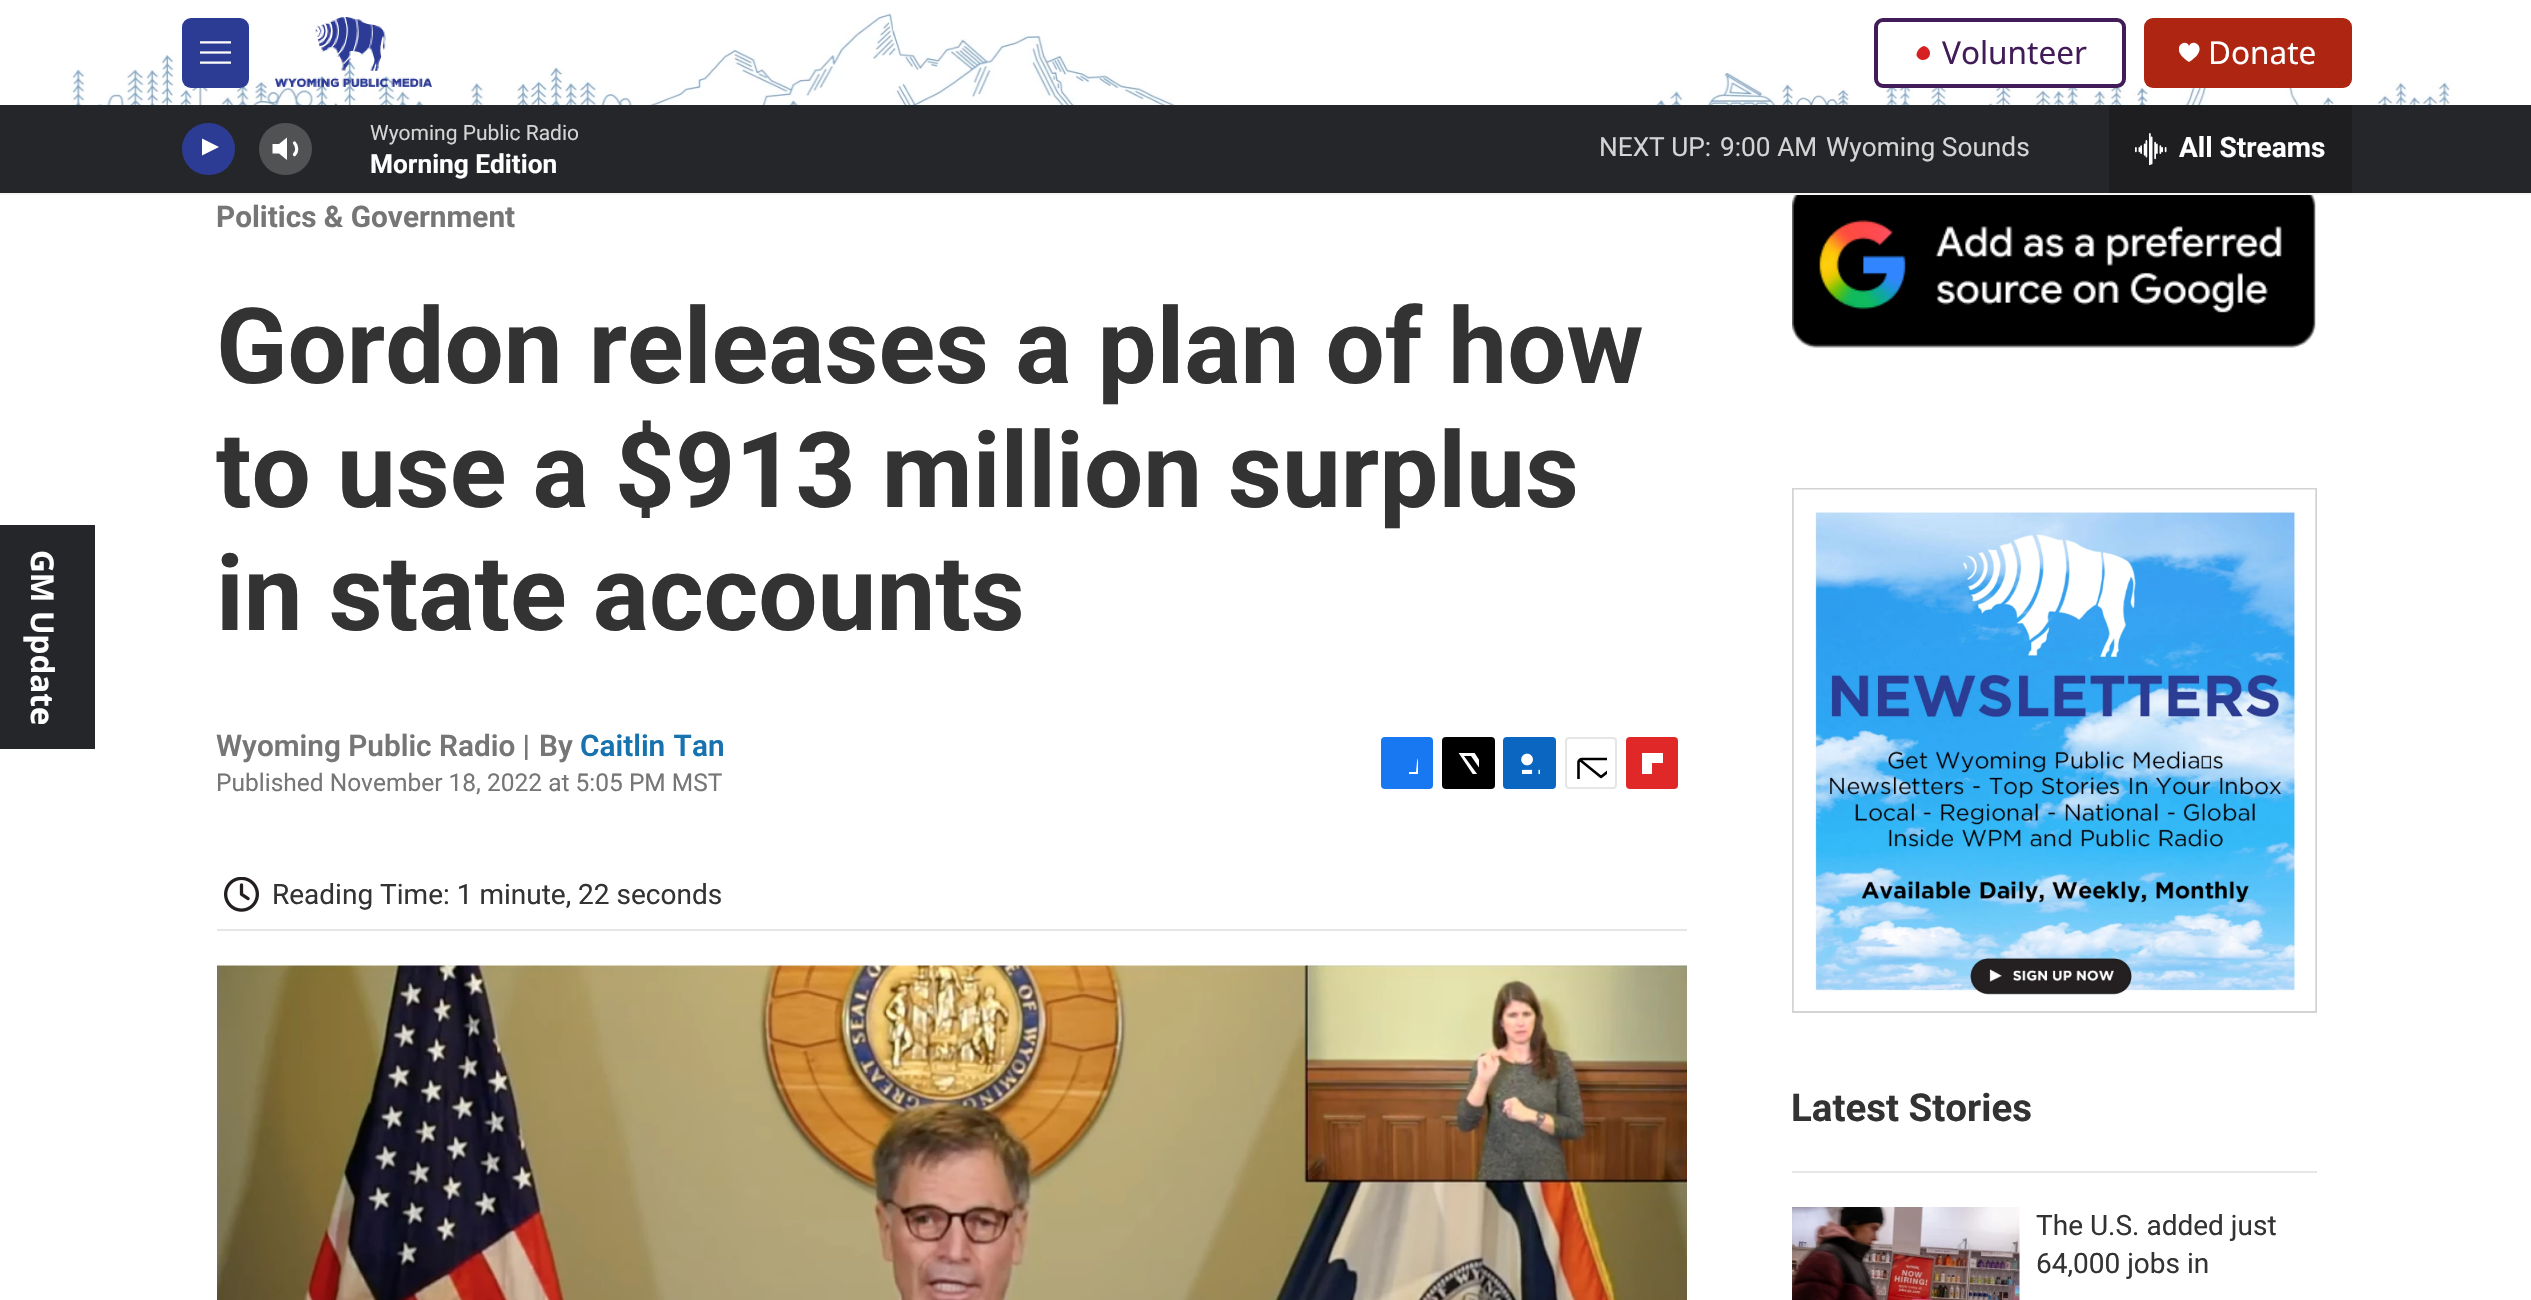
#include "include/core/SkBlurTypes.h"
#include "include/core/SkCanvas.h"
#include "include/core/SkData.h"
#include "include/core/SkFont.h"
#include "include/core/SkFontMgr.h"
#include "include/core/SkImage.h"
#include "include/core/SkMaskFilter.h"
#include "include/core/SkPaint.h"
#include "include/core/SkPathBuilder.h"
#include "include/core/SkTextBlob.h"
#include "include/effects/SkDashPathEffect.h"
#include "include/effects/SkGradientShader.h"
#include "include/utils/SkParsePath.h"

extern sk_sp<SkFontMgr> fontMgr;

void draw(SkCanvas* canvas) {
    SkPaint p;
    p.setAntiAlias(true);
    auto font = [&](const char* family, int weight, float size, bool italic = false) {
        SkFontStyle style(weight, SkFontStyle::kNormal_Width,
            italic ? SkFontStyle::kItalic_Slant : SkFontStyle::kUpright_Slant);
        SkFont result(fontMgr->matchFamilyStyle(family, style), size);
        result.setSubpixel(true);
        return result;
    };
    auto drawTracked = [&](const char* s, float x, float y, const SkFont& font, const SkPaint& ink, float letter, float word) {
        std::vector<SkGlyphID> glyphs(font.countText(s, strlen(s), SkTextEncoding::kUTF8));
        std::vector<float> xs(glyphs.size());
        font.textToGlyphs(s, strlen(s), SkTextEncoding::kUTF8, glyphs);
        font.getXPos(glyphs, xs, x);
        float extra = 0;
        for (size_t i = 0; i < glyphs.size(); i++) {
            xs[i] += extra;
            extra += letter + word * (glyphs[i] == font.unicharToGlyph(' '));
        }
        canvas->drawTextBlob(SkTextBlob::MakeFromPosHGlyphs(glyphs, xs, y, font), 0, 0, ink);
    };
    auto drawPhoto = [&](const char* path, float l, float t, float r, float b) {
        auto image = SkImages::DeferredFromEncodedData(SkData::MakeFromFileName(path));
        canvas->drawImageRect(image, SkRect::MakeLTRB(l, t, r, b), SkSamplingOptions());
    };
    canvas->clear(0xFFFFFFFF);
    p.setColor(0xFFF5F5F5);
    canvas->drawRect(SkRect::MakeLTRB(0, 193, 2531, 195), p);
    drawPhoto("media/1.png", 67, 13, 2472, 105);
    p.setColor(0xFF2C3C94);
    canvas->drawRoundRect(SkRect::MakeLTRB(182, 18, 249, 88), 9, 9, p);
    drawPhoto("media/2.png", 200, 41, 231, 64);
    drawPhoto("media/3.png", 274, 17, 432, 87);
    p.setColor(0xFFFFFFFF);
    canvas->drawRoundRect(SkRect::MakeLTRB(1876, 20, 2124, 86), 7, 7, p);
    p.setStyle(SkPaint::kStroke_Style);
    p.setStrokeWidth(4);
    p.setColor(0xFF411C58);
    canvas->drawRoundRect(SkRect::MakeLTRB(1876, 20, 2124, 86), 7, 7, p);
    p.setStyle(SkPaint::kFill_Style);
    p.setColor(0xFFD62021);
    canvas->drawPath(SkPathBuilder().moveTo(1916.5f, 55.5f).cubicTo(1916.5f, 51, 1919.5f, 47.5f, 1923.5f, 46).cubicTo(1927, 46.5f, 1930, 49.5f, 1930, 53).cubicTo(1930, 57, 1927, 60, 1923, 60).cubicTo(1920, 60, 1917.5f, 58, 1916.5f, 55.5f).close().detach(), p);
    auto font1 = font("Noto Sans", 400, 31.5f);
    p.setColor(0xFF411C58);
    canvas->drawString("Volunteer", 1942, 64, font1, p);
    p.setColor(0xFFAE2512);
    canvas->drawRoundRect(SkRect::MakeLTRB(2144, 18, 2352, 88), 9, 9, p);
    canvas->save();
    canvas->clipRect(SkRect::MakeLTRB(2179, 42, 2200, 63));
    p.setColor(0xFFFFFFFF);
    canvas->drawPath(SkPathBuilder().moveTo(2189, 46).cubicTo(2186, 37, 2167.5f, 48.5f, 2189, 62).cubicTo(2211, 48.5f, 2192.5f, 37, 2189, 46).close().detach(), p);
    canvas->restore();
    canvas->drawString("Donate", 2208, 64, font1, p);
    p.setColor(0xFF252629);
    canvas->drawRect(SkRect::MakeLTRB(0, 105, 2531, 193), p);
    p.setColor(0xFF2C3C94);
    canvas->drawRoundRect(SkRect::MakeLTRB(182, 123, 235, 175), 26, 26, p);
    p.setColor(0xFFFFFFFF);
    canvas->drawPath(SkPathBuilder().moveTo(202, 138.5f).lineTo(219, 147).lineTo(202, 155.5f).close().detach(), p);
    canvas->drawPath(SkPathBuilder().moveTo(287, 137.5f).lineTo(279, 144).lineTo(272.5f, 144).lineTo(272.5f, 153.5f).lineTo(279, 153.5f).lineTo(287, 160).close().detach(), p);
    p.setStyle(SkPaint::kStroke_Style);
    p.setStrokeWidth(3.2f);
    p.setStrokeCap(SkPaint::kRound_Cap);
    p.setStrokeJoin(SkPaint::kRound_Join);
    canvas->drawPath(SkPathBuilder().moveTo(294.5f, 143).cubicTo(297.5f, 146.5f, 297.5f, 151.5f, 294.5f, 154.5f).detach(), p);
    p.setStyle(SkPaint::kFill_Style);
    p.setColor(0x33FFFFFF);
    canvas->drawRoundRect(SkRect::MakeLTRB(259, 123, 312, 175), 26, 26, p);
    auto font2 = font("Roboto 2", 400, 21);
    p.setColor(0xFFD3D4D4);
    canvas->drawString("Wyoming Public Radio", 370, 140, font2, p);
    auto font3 = font("Roboto 2", 700, 26.25f);
    p.setColor(0xFFFFFFFF);
    canvas->drawString("Morning Edition", 370, 173, font3, p);
    auto font4 = font("Roboto 2", 400, 26.25f);
    p.setColor(0xFFD3D4D4);
    {
        const struct { const char* s; float x, y; } items[] = {
            {"NEXT UP:", 1599, 156},
            {"9:00 AM", 1720, 156},
            {"Wyoming Sounds", 1826, 156},
        };
        for (auto [s, x, y] : items) {
            canvas->drawString(s, x, y, font4, p);
        }
    }
    p.setColor(0xFF1E1E21);
    canvas->drawRect(SkRect::MakeLTRB(2109, 105, 2352, 193), p);
    drawPhoto("media/4.png", 2135, 133, 2167, 165);
    auto font5 = font("Roboto 2", 700, 28);
    p.setColor(0xFFFFFFFF);
    canvas->drawString("All Streams", 2179, 157, font5, p);
    p.setColor(0xFF25262A);
    canvas->drawRect(SkRect::MakeLTRB(0, 525, 95, 749), p);
    auto font6 = font("Noto Sans", 700, 31.5f);
    p.setColor(0xFFFFFFFF);
    canvas->save();
    canvas->rotate(90, 31, 550);
    canvas->drawString("GM Update", 31, 550, font6, p);
    canvas->restore();
    auto font7 = font("Roboto", 700, 29.75f);
    p.setColor(0xFF767676);
    canvas->drawString("Politics & Government", 216, 227, font7, p);
    auto font8 = font("Roboto", 700, 105);
    p.setColor(0xFF333333);
    {
        const struct { const char* s; float x, y; } items[] = {
            {"Gordon releases a plan of how", 216, 383},
            {"to use a $913 million surplus", 216, 507},
            {"in state accounts", 216, 630},
        };
        for (auto [s, x, y] : items) {
            canvas->drawString(s, x, y, font8, p);
        }
    }
    auto font9 = font("Roboto", 600, 29.75f);
    p.setColor(0xFF767676);
    canvas->drawString("Wyoming Public Radio |", 216, 756, font9, p);
    canvas->drawString("By", 539, 756, font9, p);
    p.setColor(0xFF1772B0);
    drawTracked("Caitlin Tan", 580, 756, font9, p, 0, 1);
    auto font10 = font("Roboto", 400, 24.5f);
    p.setColor(0xFF767676);
    canvas->drawString("Published November 18, 2022 at 5:05 PM MST", 216, 791, font10, p);
    p.setColor(0xFF1778F2);
    canvas->drawRoundRect(SkRect::MakeLTRB(1381, 737, 1433, 789), 4, 4, p);
    canvas->save();
    canvas->clipRect(SkRect::MakeLTRB(1397, 753, 1418, 774));
    p.setColor(0xFFFFFFFF);
    canvas->drawPath(SkPathBuilder().moveTo(1426, 789).lineTo(1416, 789).lineTo(1416, 781).lineTo(1409, 781).lineTo(1409, 772).lineTo(1416, 772).lineTo(1417, 762).cubicTo(1418, 753.5f, 1425.5f, 752, 1433, 753.5f).lineTo(1433, 761).cubicTo(1425.5f, 761, 1425.5f, 762, 1426, 768).lineTo(1426, 772).lineTo(1433, 772).lineTo(1433, 781).lineTo(1426, 781).close().detach(), p);
    canvas->restore();
    p.setColor(0xFF000000);
    canvas->drawRoundRect(SkRect::MakeLTRB(1442, 737, 1495, 789), 4, 4, p);
    canvas->save();
    canvas->clipRect(SkRect::MakeLTRB(1458, 753, 1479, 774));
    p.setColor(0xFFFFFFFF);
    canvas->drawPath(SkPathBuilder().moveTo(1489, 775).lineTo(1495, 783.5f).cubicTo(1495, 785.5f, 1495, 787, 1493.5f, 788).lineTo(1471, 756).lineTo(1464, 756).lineTo(1488, 789).lineTo(1483, 789).lineTo(1480, 785).lineTo(1476.5f, 789).lineTo(1472, 789).lineTo(1478, 782).lineTo(1458, 752).lineTo(1474, 752).lineTo(1487, 772).lineTo(1495, 762).lineTo(1495, 767.5f).close().detach(), p);
    canvas->restore();
    p.setColor(0xFF0A66C1);
    canvas->drawRoundRect(SkRect::MakeLTRB(1503, 737, 1556, 789), 4, 4, p);
    drawPhoto("media/5.png", 1521, 753, 1540, 774);
    p.setStyle(SkPaint::kStroke_Style);
    p.setStrokeWidth(2);
    p.setStrokeCap(SkPaint::kButt_Cap);
    p.setStrokeJoin(SkPaint::kMiter_Join);
    p.setColor(0xFFE6E6E6);
    canvas->drawRoundRect(SkRect::MakeLTRB(1566, 738, 1616, 788), 3, 3, p);
    canvas->save();
    canvas->clipRect(SkRect::MakeLTRB(1575, 747, 1607, 779));
    p.setStrokeWidth(2.6f);
    p.setStrokeCap(SkPaint::kRound_Cap);
    p.setStrokeJoin(SkPaint::kRound_Join);
    p.setColor(0xFF000000);
    canvas->drawPath(SkPathBuilder().moveTo(1624, 785.5f).cubicTo(1624, 787.5f, 1622.5f, 789, 1620.5f, 789).lineTo(1582, 789).cubicTo(1580, 789, 1578.5f, 787.5f, 1578.5f, 785.5f).lineTo(1578.5f, 762).cubicTo(1578.5f, 760.5f, 1580, 759, 1582, 759).lineTo(1620.5f, 759).cubicTo(1622.5f, 759, 1624, 760.5f, 1624, 762).close().moveTo(1622.5f, 760).lineTo(1601, 777).lineTo(1580, 760).detach(), p);
    canvas->restore();
    p.setStyle(SkPaint::kFill_Style);
    p.setColor(0xFFE12828);
    canvas->drawRoundRect(SkRect::MakeLTRB(1626, 737, 1678, 789), 4, 4, p);
    canvas->save();
    canvas->clipRect(SkRect::MakeLTRB(1642, 753, 1663, 774));
    p.setColor(0xFFFFFFFF);
    canvas->drawPath(SkPathBuilder(SkPathFillType::kEvenOdd).moveTo(1642, 752).lineTo(1642, 789).lineTo(1652, 789).lineTo(1652, 763).lineTo(1678, 763).lineTo(1678, 752).close().moveTo(1678, 774).lineTo(1673, 774).lineTo(1673, 784).lineTo(1662, 784).lineTo(1662, 789).cubicTo(1679.5f, 789, 1678, 791.5f, 1678, 774).close().detach(), p);
    canvas->restore();
    p.setColor(0xFFE6E6E6);
    canvas->drawRect(SkRect::MakeLTRB(217, 929, 1687, 931), p);
    drawPhoto("media/6.png", 224, 877, 259, 912);
    auto font11 = font("Roboto 2", 400, 28);
    p.setColor(0xFF333333);
    canvas->drawString("Reading Time: 1 minute, 22 seconds", 272, 904, font11, p);
    drawPhoto("media/7.png", 217, 965, 1687, 1300);
    drawPhoto("media/8.png", 1792, 195, 2316, 348);
    p.setStyle(SkPaint::kStroke_Style);
    p.setStrokeWidth(2);
    p.setStrokeCap(SkPaint::kButt_Cap);
    p.setStrokeJoin(SkPaint::kMiter_Join);
    p.setColor(0xFFD3D3D3);
    canvas->drawRect(SkRect::MakeLTRB(1793, 489, 2316, 1012), p);
    drawPhoto("media/9.png", 1793, 489, 2316, 1011);
    p.setStyle(SkPaint::kFill_Style);
    p.setColor(0xFFE6E6E6);
    canvas->drawRect(SkRect::MakeLTRB(1792, 1171, 2317, 1173), p);
    auto font12 = font("Roboto", 700, 38.5f);
    p.setColor(0xFF333333);
    canvas->drawString("Latest Stories", 1791, 1121, font12, p);
    drawPhoto("media/10.png", 1792, 1207, 2020, 1300);
    canvas->drawString("The U.S. added just", 2036, 1235, font11, p);
    canvas->drawString("64,000 jobs in", 2036, 1273, font11, p);
}
